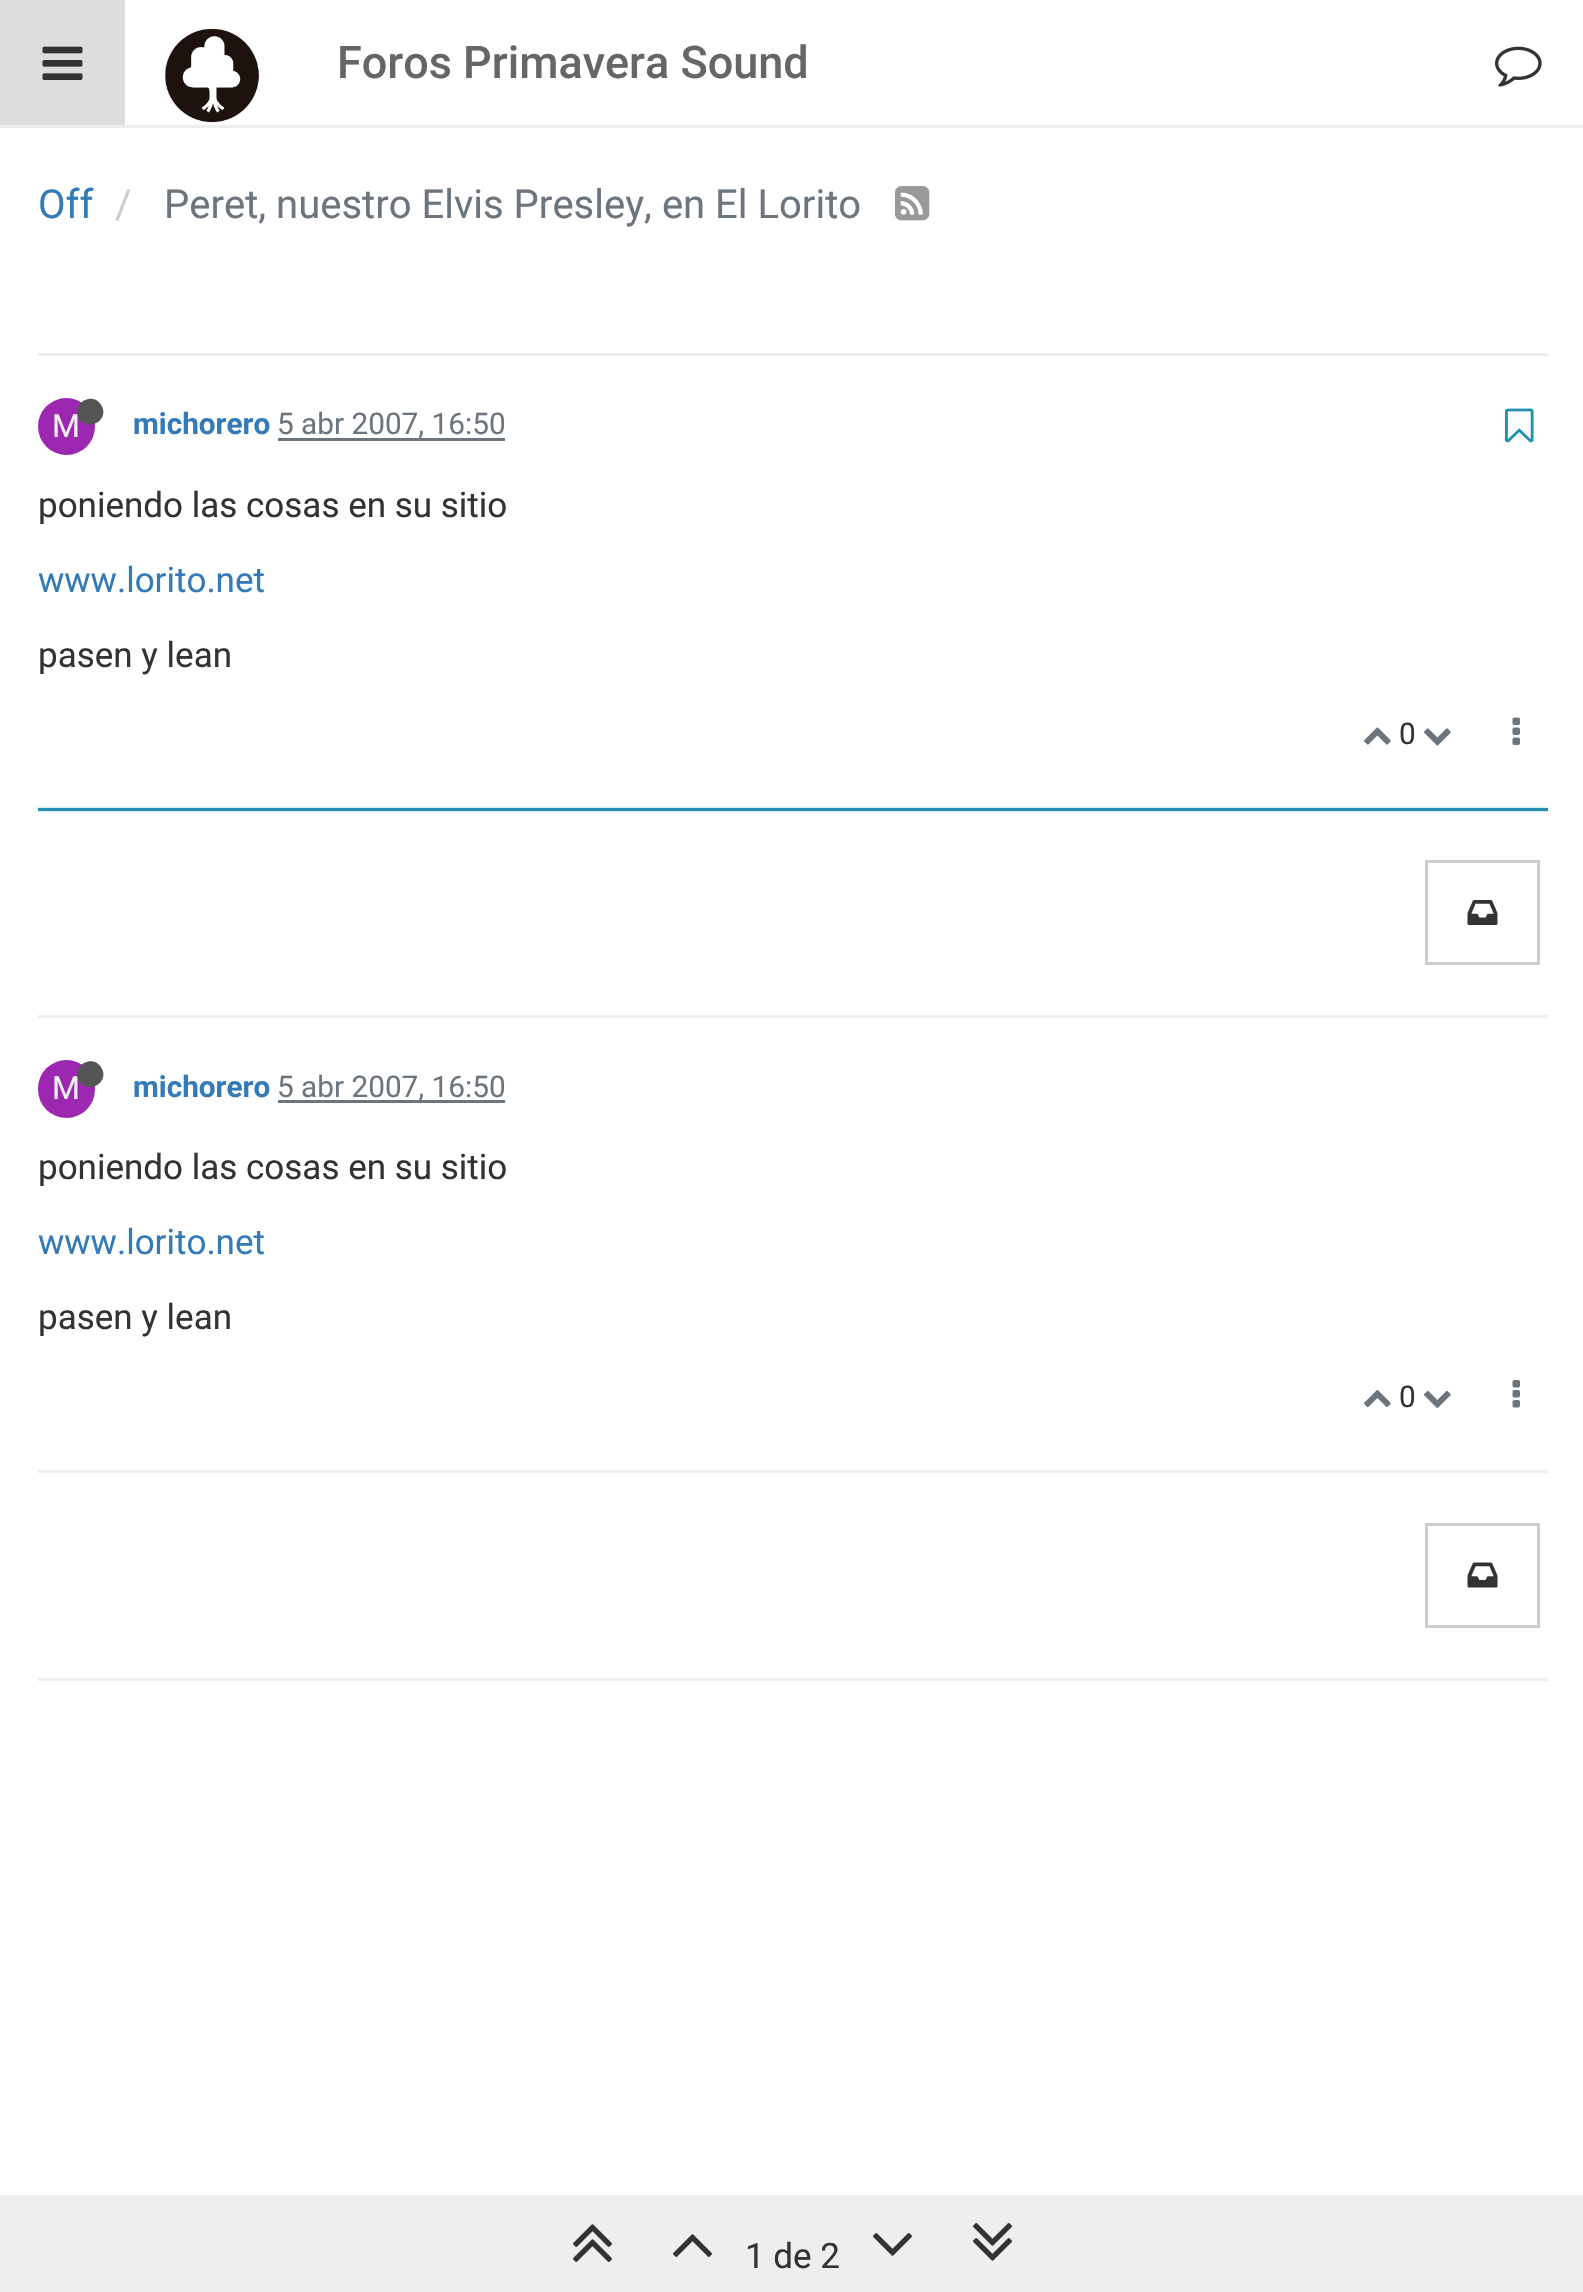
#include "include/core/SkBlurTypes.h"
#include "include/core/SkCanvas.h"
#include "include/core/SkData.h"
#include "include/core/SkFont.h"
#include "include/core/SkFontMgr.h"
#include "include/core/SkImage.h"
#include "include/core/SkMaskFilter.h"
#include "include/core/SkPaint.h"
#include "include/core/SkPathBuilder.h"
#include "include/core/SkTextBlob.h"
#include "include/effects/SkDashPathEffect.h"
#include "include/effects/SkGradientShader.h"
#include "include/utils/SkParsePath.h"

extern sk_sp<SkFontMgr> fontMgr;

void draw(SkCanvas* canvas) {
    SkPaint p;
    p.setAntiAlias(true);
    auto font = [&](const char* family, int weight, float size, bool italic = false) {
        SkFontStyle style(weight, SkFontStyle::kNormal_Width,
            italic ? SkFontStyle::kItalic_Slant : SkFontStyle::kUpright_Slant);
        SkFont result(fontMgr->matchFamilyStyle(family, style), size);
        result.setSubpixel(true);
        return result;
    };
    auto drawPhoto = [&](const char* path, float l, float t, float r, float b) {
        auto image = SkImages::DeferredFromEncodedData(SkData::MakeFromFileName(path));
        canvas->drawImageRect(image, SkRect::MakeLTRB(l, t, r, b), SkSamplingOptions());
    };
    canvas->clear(0xFFFFFFFF);
    p.setColor(0xFFEEEEEE);
    canvas->drawRect(SkRect::MakeLTRB(0, 125, 1583, 128), p);
    p.setColor(0xFFDDDDDD);
    canvas->drawRect(SkRect::MakeLTRB(0, 0, 125, 125), p);
    drawPhoto("media/1.png", 42, 46, 83, 80);
    drawPhoto("media/2.png", 165, 28, 260, 123);
    auto font1 = font("Roboto", 500, 45);
    p.setColor(0xFF666666);
    canvas->drawString("Foros Primavera Sound", 337, 78, font1, p);
    drawPhoto("media/3.png", 1495, 46, 1542, 87);
    auto font2 = font("Roboto", 400, 40);
    p.setColor(0xFF337AB7);
    canvas->drawString("Off", 38, 218, font2, p);
    p.setColor(0xFFCCCCCC);
    canvas->drawString("/", 115, 218, font2, p);
    p.setColor(0xFF6C757D);
    canvas->drawString("Peret, nuestro Elvis Presley, en El Lorito", 164, 218, font2, p);
    drawPhoto("media/4.png", 895, 186, 930, 221);
    p.setColor(0xFFEEEEEE);
    canvas->drawRect(SkRect::MakeLTRB(38, 353, 1548, 356), p);
    p.setColor(0xFF9C27B0);
    canvas->drawCircle(66.5f, 426.5f, 28.5f, p);
    auto font3 = font("Roboto", 400, 32);
    p.setColor(0xFFEEEEEE);
    canvas->drawString("M", 52, 437, font3, p);
    p.setColor(0xFF555555);
    canvas->drawPath(SkPathBuilder().moveTo(101.5f, 405.5f).cubicTo(110, 420, 88, 433, 79, 418).cubicTo(70.5f, 403.5f, 93, 390.5f, 101.5f, 405.5f).close().detach(), p);
    auto font4 = font("Roboto", 700, 29.75f);
    p.setColor(0xFF337AB7);
    canvas->drawString("michorero", 133, 434, font4, p);
    p.setColor(0xFF6C757D);
    canvas->drawRect(SkRect::MakeLTRB(278, 438, 505, 441), p);
    auto font5 = font("Roboto", 400, 29.75f);
    canvas->drawString("5 abr 2007, 16:50", 277, 434, font5, p);
    drawPhoto("media/5.png", 1505, 408, 1534, 443);
    auto font6 = font("Roboto", 400, 35);
    p.setColor(0xFF333333);
    canvas->drawString("poniendo las cosas en su sitio", 38, 517, font6, p);
    p.setColor(0xFF337AB7);
    canvas->drawString("www.lorito.net", 38, 592, font6, p);
    p.setColor(0xFF333333);
    canvas->drawString("pasen y lean", 38, 667, font6, p);
    drawPhoto("media/6.png", 1364, 727, 1391, 745);
    canvas->drawString("0", 1399, 744, font5, p);
    drawPhoto("media/7.png", 1424, 728, 1451, 746);
    drawPhoto("media/8.png", 1512, 717, 1520, 745);
    p.setColor(0xFF5BC0DE);
    p.setMaskFilter(SkMaskFilter::MakeBlur(kNormal_SkBlurStyle, 1));
    canvas->drawRect(SkRect::MakeLTRB(38, 808, 1548, 811), p);
    p.setMaskFilter(nullptr);
    p.setColor(0xFF2390B0);
    canvas->drawRect(SkRect::MakeLTRB(38, 808, 1548, 811), p);
    p.setStyle(SkPaint::kStroke_Style);
    p.setStrokeWidth(3);
    p.setColor(0xFFCCCCCC);
    canvas->drawRect(SkRect::MakeLTRB(1426.5f, 861.5f, 1538.5f, 963.5f), p);
    drawPhoto("media/9.png", 1467, 900, 1498, 925);
    p.setStyle(SkPaint::kFill_Style);
    p.setColor(0xFFEEEEEE);
    canvas->drawRect(SkRect::MakeLTRB(38, 1015, 1548, 1018), p);
    p.setColor(0xFF9C27B0);
    canvas->drawRoundRect(SkRect::MakeLTRB(38, 1060, 95, 1118), 28.5f, 28.5f, p);
    p.setColor(0xFFEEEEEE);
    canvas->drawString("M", 52, 1099, font3, p);
    p.setColor(0xFF555555);
    canvas->drawPath(SkPathBuilder().moveTo(101.5f, 1068).cubicTo(110, 1082.5f, 88, 1095.5f, 79, 1080.5f).cubicTo(70.5f, 1066, 93, 1053, 101.5f, 1068).close().detach(), p);
    p.setColor(0xFF337AB7);
    canvas->drawString("michorero", 133, 1097, font4, p);
    p.setColor(0xFF6C757D);
    canvas->drawRect(SkRect::MakeLTRB(278, 1100, 505, 1103), p);
    canvas->drawString("5 abr 2007, 16:50", 277, 1097, font5, p);
    p.setColor(0xFF333333);
    canvas->drawString("poniendo las cosas en su sitio", 38, 1179, font6, p);
    p.setColor(0xFF337AB7);
    canvas->drawString("www.lorito.net", 38, 1254, font6, p);
    p.setColor(0xFF333333);
    canvas->drawString("pasen y lean", 38, 1329, font6, p);
    drawPhoto("media/10.png", 1364, 1390, 1391, 1408);
    canvas->drawString("0", 1399, 1407, font5, p);
    drawPhoto("media/11.png", 1424, 1390, 1451, 1408);
    drawPhoto("media/12.png", 1512, 1380, 1520, 1408);
    p.setColor(0xFFEEEEEE);
    canvas->drawRect(SkRect::MakeLTRB(38, 1470, 1548, 1473), p);
    p.setStyle(SkPaint::kStroke_Style);
    p.setColor(0xFFCCCCCC);
    canvas->drawRect(SkRect::MakeLTRB(1426.5f, 1524.5f, 1538.5f, 1626.5f), p);
    drawPhoto("media/13.png", 1467, 1562, 1498, 1588);
    p.setStyle(SkPaint::kFill_Style);
    p.setColor(0xFFEEEEEE);
    canvas->drawRect(SkRect::MakeLTRB(38, 1678, 1548, 1681), p);
    canvas->drawRect(SkRect::MakeLTRB(0, 2195, 1583, 2292), p);
    drawPhoto("media/14.png", 573, 2224, 612, 2262);
    drawPhoto("media/15.png", 673, 2234, 712, 2257);
    p.setColor(0xFF333333);
    canvas->drawString("1 de 2", 745, 2268, font6, p);
    drawPhoto("media/16.png", 873, 2233, 912, 2256);
    drawPhoto("media/17.png", 973, 2223, 1012, 2261);
}
